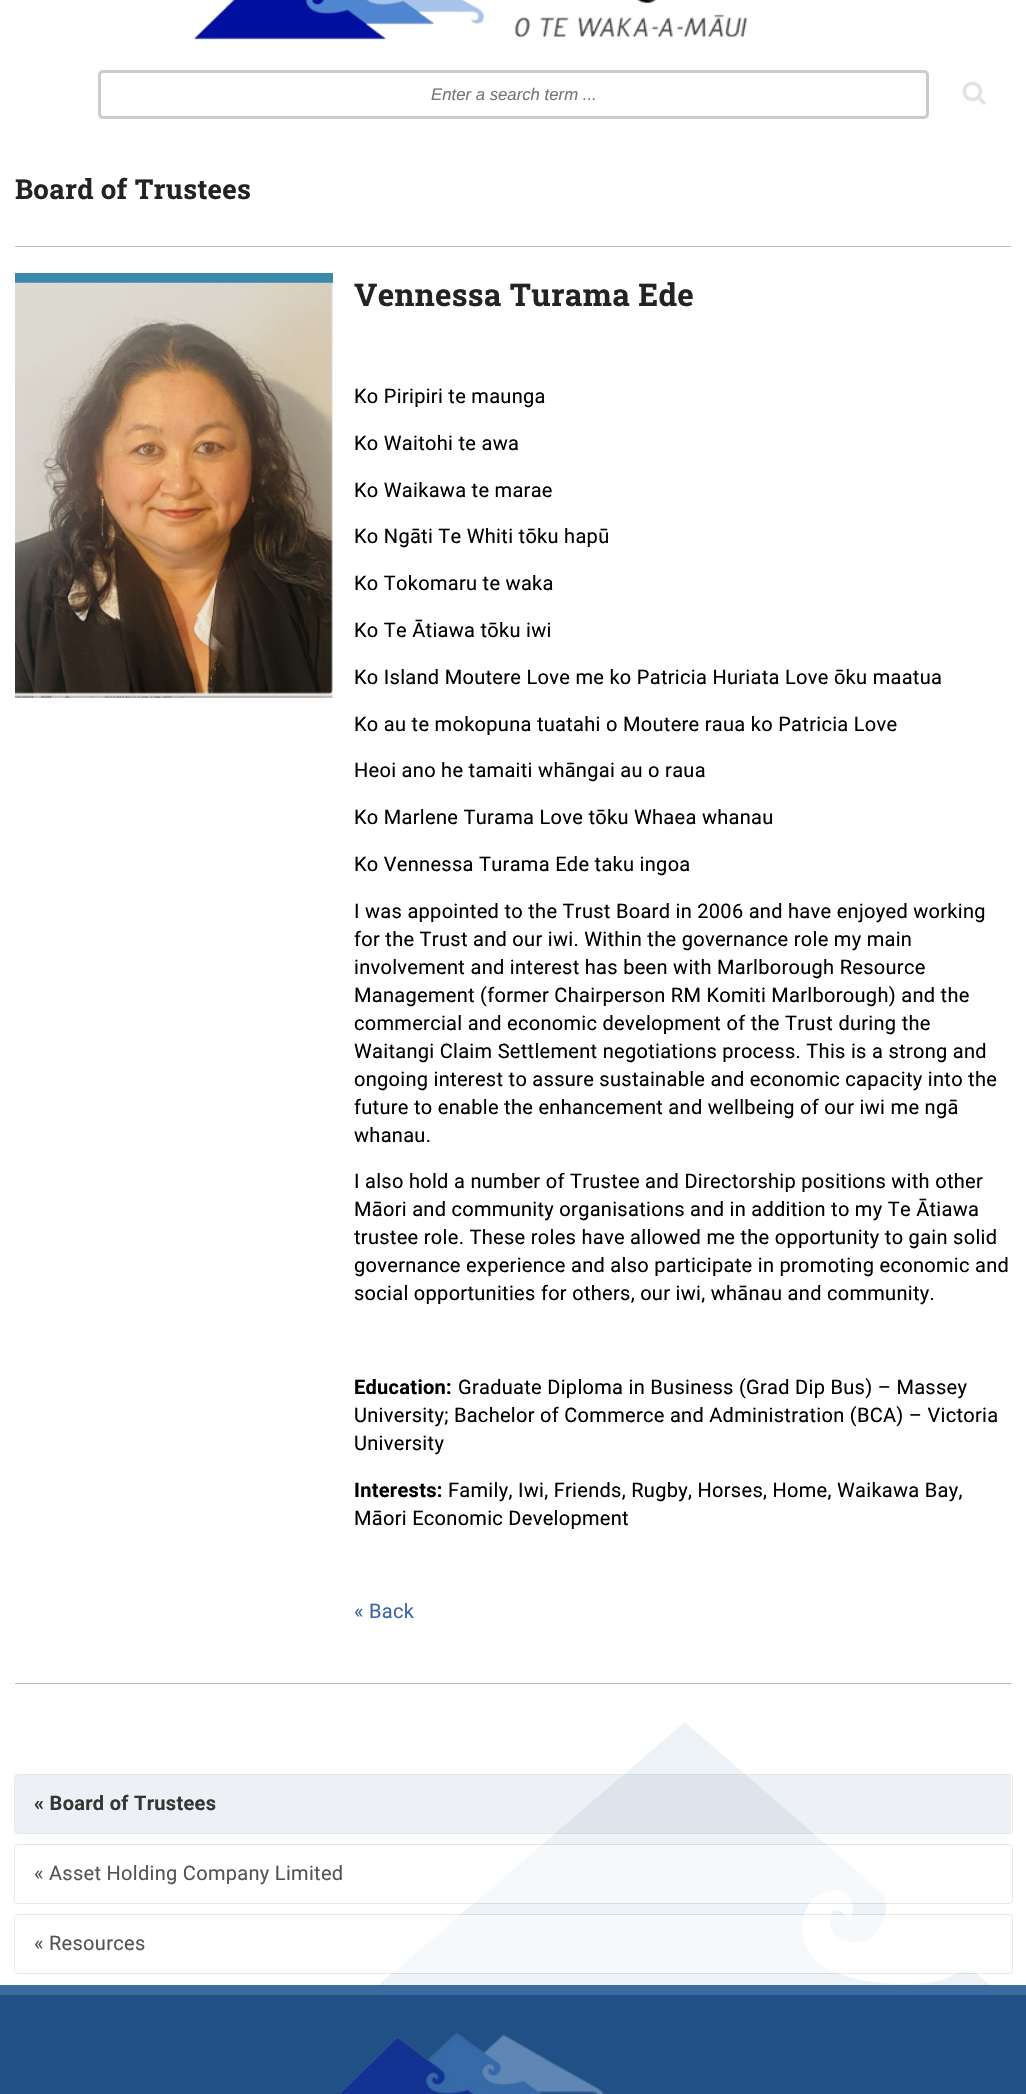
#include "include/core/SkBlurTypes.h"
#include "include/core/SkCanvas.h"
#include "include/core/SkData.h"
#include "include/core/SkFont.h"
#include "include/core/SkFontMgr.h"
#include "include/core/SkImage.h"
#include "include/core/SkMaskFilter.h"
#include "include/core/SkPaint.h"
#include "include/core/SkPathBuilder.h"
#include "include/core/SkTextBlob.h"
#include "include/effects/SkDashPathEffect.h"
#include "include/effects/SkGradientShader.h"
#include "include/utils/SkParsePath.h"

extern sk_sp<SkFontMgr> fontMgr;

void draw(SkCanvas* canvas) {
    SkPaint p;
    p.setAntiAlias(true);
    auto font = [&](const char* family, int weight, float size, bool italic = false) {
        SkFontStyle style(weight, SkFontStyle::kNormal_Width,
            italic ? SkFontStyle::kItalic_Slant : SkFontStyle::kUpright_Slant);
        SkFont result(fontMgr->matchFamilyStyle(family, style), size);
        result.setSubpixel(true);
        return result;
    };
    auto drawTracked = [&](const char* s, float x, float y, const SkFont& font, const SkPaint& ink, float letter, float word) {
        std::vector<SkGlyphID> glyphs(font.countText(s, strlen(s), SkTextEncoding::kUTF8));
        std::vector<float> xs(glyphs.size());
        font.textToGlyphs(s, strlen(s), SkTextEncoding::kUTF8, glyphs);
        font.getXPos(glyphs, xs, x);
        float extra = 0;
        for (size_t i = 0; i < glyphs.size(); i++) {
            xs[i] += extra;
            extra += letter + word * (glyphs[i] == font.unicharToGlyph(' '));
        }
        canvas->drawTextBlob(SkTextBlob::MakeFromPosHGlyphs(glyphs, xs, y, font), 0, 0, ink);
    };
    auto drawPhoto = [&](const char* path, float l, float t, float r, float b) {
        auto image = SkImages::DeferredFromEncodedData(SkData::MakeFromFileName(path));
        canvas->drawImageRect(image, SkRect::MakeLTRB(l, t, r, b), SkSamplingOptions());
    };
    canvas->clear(0xFFFFFFFF);
    drawPhoto("media/1.png", 193, 0, 748, 40);
    p.setStyle(SkPaint::kStroke_Style);
    p.setStrokeWidth(3);
    p.setColor(0xFFCCCCCC);
    canvas->drawRoundRect(SkRect::MakeLTRB(99.5f, 71.5f, 927.5f, 117.5f), 3.5f, 3.5f, p);
    auto font1 = font("Liberation Sans", 400, 16.75f, true);
    p.setStyle(SkPaint::kFill_Style);
    p.setColor(0xFF757575);
    canvas->drawString("Enter a search term ...", 431, 100, font1, p);
    drawPhoto("media/2.png", 962, 81, 986, 105);
    drawPhoto("media/3.png", 378, 1722, 990, 1985);
    auto font2 = font("Roboto Slab", 700, 27.5f);
    p.setColor(0xFF232323);
    drawTracked("Board of Trustees", 15, 199, font2, p, 0.3f, 0);
    p.setColor(0xFFBBBBBB);
    canvas->drawRect(SkRect::MakeLTRB(15, 246, 1011, 247), p);
    p.setColor(0xFF3A89AC);
    canvas->drawRect(SkRect::MakeLTRB(15, 273, 333, 283), p);
    drawPhoto("media/4.png", 15, 282, 333, 698);
    auto font3 = font("Roboto Slab", 700, 31.25f);
    p.setColor(0xFF232323);
    drawTracked("Vennessa Turama Ede", 354, 306, font3, p, 0.3f, 0);
    auto font4 = font("Roboto", 400, 20);
    p.setColor(0xFF000000);
    {
        const struct { const char* s; float x, y; } items[] = {
            {"Ko Piripiri te maunga", 354, 403},
            {"Ko Waitohi te awa", 354, 450},
            {"Ko Waikawa te marae", 354, 497},
            {"Ko Ngāti Te Whiti tōku hapū", 354, 543},
            {"Ko Tokomaru te waka", 354, 590},
            {"Ko Te Ātiawa tōku iwi", 354, 637},
            {"Ko Island Moutere Love me ko Patricia Huriata Love ōku maatua", 354, 684},
            {"Ko au te mokopuna tuatahi o Moutere raua ko Patricia Love", 354, 731},
            {"Heoi ano he tamaiti whāngai au o raua", 354, 777},
            {"Ko Marlene Turama Love tōku Whaea whanau", 354, 824},
            {"Ko Vennessa Turama Ede taku ingoa", 354, 871},
            {"I was appointed to the Trust Board in 2006 and have enjoyed working", 354, 918},
            {"for the Trust and our iwi. Within the governance role my main", 354, 946},
            {"involvement and interest has been with Marlborough Resource", 354, 974},
            {"Management (former Chairperson RM Komiti Marlborough) and the", 354, 1002},
            {"commercial and economic development of the Trust during the", 354, 1030},
            {"Waitangi Claim Settlement negotiations process. This is a strong and", 354, 1058},
            {"ongoing interest to assure sustainable and economic capacity into the", 354, 1086},
            {"future to enable the enhancement and wellbeing of our iwi me ngā", 354, 1114},
            {"whanau.", 354, 1142},
            {"I also hold a number of Trustee and Directorship positions with other", 354, 1188},
            {"Māori and community organisations and in addition to my Te Ātiawa", 354, 1216},
            {"trustee role. These roles have allowed me the opportunity to gain solid", 354, 1244},
            {"governance experience and also participate in promoting economic and", 354, 1272},
            {"social opportunities for others, our iwi, whānau and community.", 354, 1300},
        };
        for (auto [s, x, y] : items) {
            drawTracked(s, x, y, font4, p, 0.3f, 0);
        }
    }
    auto font5 = font("Roboto", 700, 20);
    drawTracked("Education:", 354, 1394, font5, p, 0.3f, 0);
    {
        const struct { const char* s; float x, y; } items[] = {
            {"Graduate Diploma in Business (Grad Dip Bus) – Massey", 458, 1394},
            {"University; Bachelor of Commerce and Administration (BCA) – Victoria", 354, 1422},
            {"University", 354, 1450},
        };
        for (auto [s, x, y] : items) {
            drawTracked(s, x, y, font4, p, 0.3f, 0);
        }
    }
    drawTracked("Interests:", 354, 1497, font5, p, 0.3f, 0);
    drawTracked("Family, Iwi, Friends, Rugby, Horses, Home, Waikawa Bay,", 448, 1497, font4, p, 0.3f, 0);
    drawTracked("Māori Economic Development", 354, 1525, font4, p, 0.3f, 0);
    p.setColor(0xFF3A66A7);
    drawTracked("« Back", 354, 1618, font4, p, 0.3f, 0);
    p.setColor(0xFFBBBBBB);
    canvas->drawRect(SkRect::MakeLTRB(15, 1683, 1011, 1684), p);
    p.setStyle(SkPaint::kStroke_Style);
    p.setStrokeWidth(1);
    p.setColor(0x17000000);
    canvas->drawRoundRect(SkRect::MakeLTRB(14.5f, 1774.5f, 1012.5f, 1833.5f), 3.5f, 3.5f, p);
    p.setStyle(SkPaint::kFill_Style);
    p.setColor(0x1A4D6991);
    canvas->drawRoundRect(SkRect::MakeLTRB(15, 1775, 1011, 1833), 2.5f, 2.5f, p);
    p.setColor(0xFF363635);
    drawTracked("« Board of Trustees", 34, 1810, font5, p, 0.3f, 0);
    p.setStyle(SkPaint::kStroke_Style);
    p.setColor(0x17000000);
    canvas->drawRoundRect(SkRect::MakeLTRB(14.5f, 1844.5f, 1012.5f, 1903.5f), 3.5f, 3.5f, p);
    p.setStyle(SkPaint::kFill_Style);
    p.setColor(0x80FFFFFF);
    canvas->drawRoundRect(SkRect::MakeLTRB(15, 1845, 1011, 1903), 2.5f, 2.5f, p);
    p.setColor(0xFF535353);
    drawTracked("« Asset Holding Company Limited", 34, 1880, font4, p, 0.3f, 0);
    p.setStyle(SkPaint::kStroke_Style);
    p.setColor(0x17000000);
    canvas->drawRoundRect(SkRect::MakeLTRB(14.5f, 1914.5f, 1012.5f, 1973.5f), 3.5f, 3.5f, p);
    p.setStyle(SkPaint::kFill_Style);
    p.setColor(0x80FFFFFF);
    canvas->drawRoundRect(SkRect::MakeLTRB(15, 1915, 1011, 1973), 2.5f, 2.5f, p);
    p.setColor(0xFF535353);
    drawTracked("« Resources", 34, 1950, font4, p, 0.3f, 0);
    p.setColor(0xFF205086);
    canvas->drawRect(SkRect::MakeLTRB(0, 1995, 1026, 2094), p);
    p.setColor(0xFF3D6B9F);
    canvas->drawRect(SkRect::MakeLTRB(0, 1985, 1026, 1995), p);
    drawPhoto("media/5.png", 339, 2032, 604, 2094);
}
